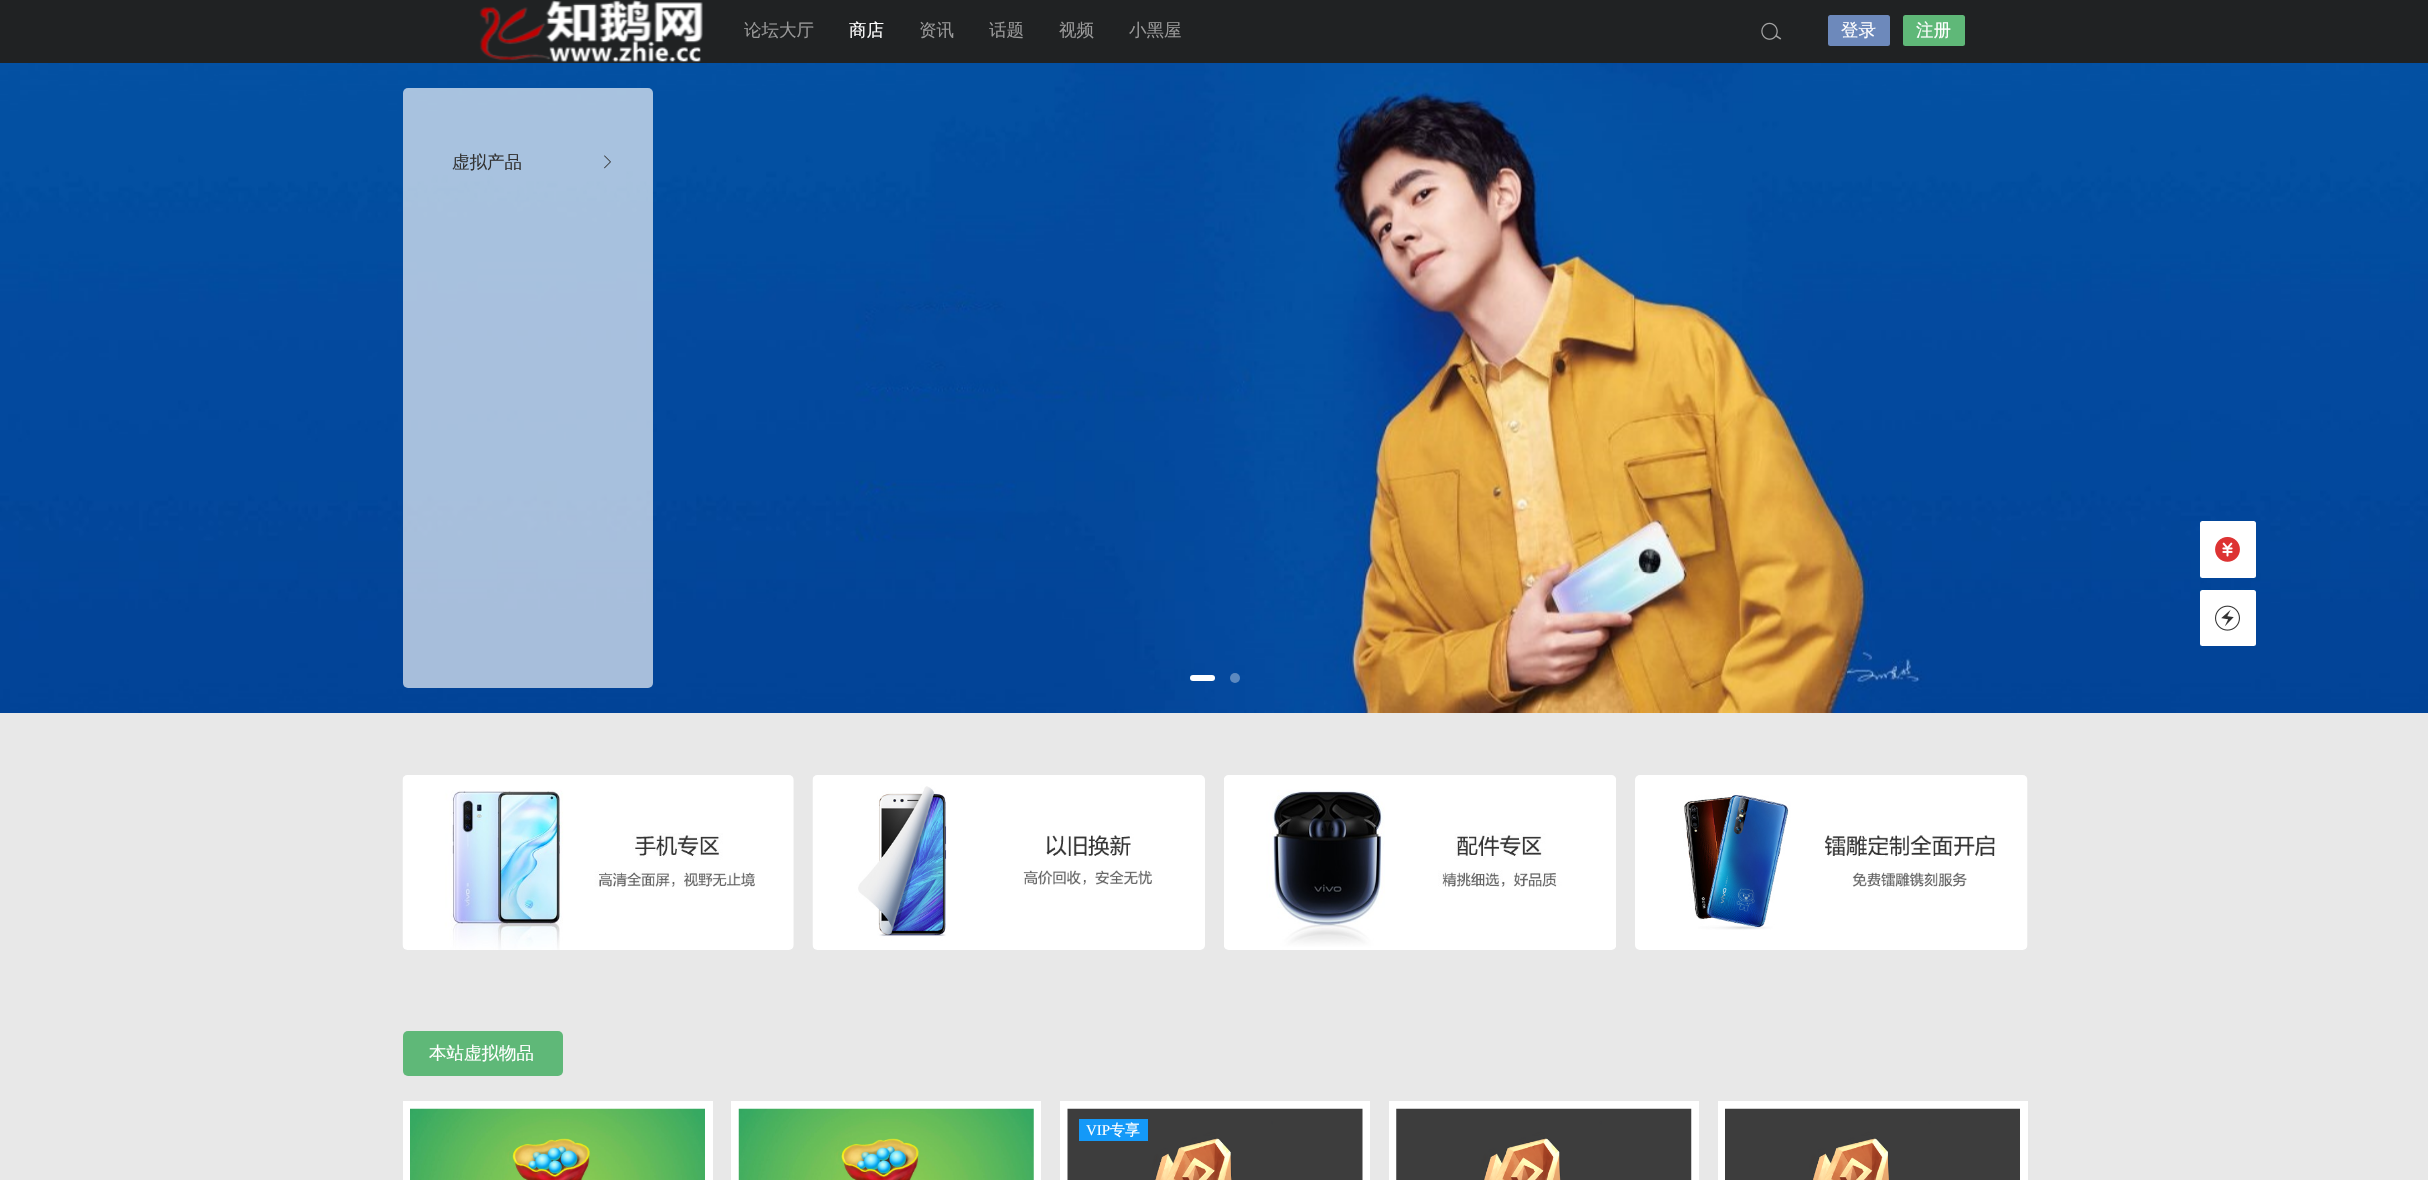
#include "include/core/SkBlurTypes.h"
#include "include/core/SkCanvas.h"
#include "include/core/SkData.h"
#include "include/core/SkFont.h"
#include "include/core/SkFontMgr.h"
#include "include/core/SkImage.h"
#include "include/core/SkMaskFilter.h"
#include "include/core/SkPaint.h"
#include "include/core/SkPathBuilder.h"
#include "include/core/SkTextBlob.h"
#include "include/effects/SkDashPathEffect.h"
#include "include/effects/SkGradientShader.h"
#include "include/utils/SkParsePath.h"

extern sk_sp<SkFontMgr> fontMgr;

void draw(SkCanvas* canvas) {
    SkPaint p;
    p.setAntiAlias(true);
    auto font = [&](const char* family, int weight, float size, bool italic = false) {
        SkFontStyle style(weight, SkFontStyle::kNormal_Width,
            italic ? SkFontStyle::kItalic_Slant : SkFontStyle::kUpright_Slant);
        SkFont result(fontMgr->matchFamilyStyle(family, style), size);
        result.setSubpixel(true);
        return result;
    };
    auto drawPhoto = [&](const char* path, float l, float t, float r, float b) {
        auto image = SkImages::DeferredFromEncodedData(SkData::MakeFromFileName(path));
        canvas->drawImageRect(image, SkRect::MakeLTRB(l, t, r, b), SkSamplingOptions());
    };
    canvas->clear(0xFFE8E8E8);
    p.setColor(0xFF202223);
    canvas->drawRect(SkRect::MakeLTRB(0, 0, 2428, 63), p);
    drawPhoto("media/1.png", 479, 0, 703, 62);
    auto font1 = font("WenQuanYi Zen Hei", 500, 17.5f);
    p.setColor(0xFF999999);
    canvas->drawString("论坛大厅", 744, 36, font1, p);
    p.setColor(0xFFFFFFFF);
    canvas->drawString("商店", 849, 36, font1, p);
    p.setColor(0xFF999999);
    {
        const struct { const char* s; float x, y; } items[] = {
            {"资讯", 919, 36},
            {"话题", 989, 36},
            {"视频", 1059, 36},
            {"小黑屋", 1129, 36},
        };
        for (auto [s, x, y] : items) {
            canvas->drawString(s, x, y, font1, p);
        }
    }
    drawPhoto("media/2.png", 1761, 22, 1782, 40);
    p.setColor(0xFF6D89BB);
    canvas->drawRoundRect(SkRect::MakeLTRB(1828, 15, 1890, 46), 2.5f, 2.5f, p);
    p.setColor(0xFFFFFFFF);
    canvas->drawString("登录", 1841, 36, font1, p);
    p.setColor(0xFF5FB878);
    canvas->drawRoundRect(SkRect::MakeLTRB(1903, 15, 1965, 46), 2.5f, 2.5f, p);
    p.setColor(0xFFFFFFFF);
    canvas->drawString("注册", 1916, 36, font1, p);
    drawPhoto("media/3.png", 0, 63, 2428, 713);
    p.setColor(0xA6FFFFFF);
    canvas->drawRoundRect(SkRect::MakeLTRB(403, 88, 653, 688), 5, 5, p);
    p.setColor(0xFF333333);
    canvas->drawString("虚拟产品", 452, 168, font1, p);
    drawPhoto("media/4.png", 604, 155, 611, 169);
    p.setColor(0xFFFFFFFF);
    canvas->drawRoundRect(SkRect::MakeLTRB(1190, 675, 1215, 681), 3, 3, p);
    p.setColor(0xFF5C89C0);
    canvas->drawCircle(1235, 678, 5, p);
    drawPhoto("media/5.png", 402, 775, 794, 950);
    drawPhoto("media/6.png", 812, 775, 1205, 950);
    drawPhoto("media/7.png", 1224, 775, 1616, 950);
    drawPhoto("media/8.png", 1635, 775, 2028, 950);
    p.setColor(0xFF5FB878);
    canvas->drawRoundRect(SkRect::MakeLTRB(403, 1031, 563, 1076), 5, 5, p);
    p.setColor(0xFFFFFFFF);
    canvas->drawString("本站虚拟物品", 429, 1059, font1, p);
    canvas->drawRect(SkRect::MakeLTRB(403, 1101, 713, 1180), p);
    drawPhoto("media/9.png", 410, 1108, 705, 1180);
    canvas->drawRect(SkRect::MakeLTRB(731, 1101, 1041, 1180), p);
    drawPhoto("media/10.png", 738, 1108, 1034, 1180);
    canvas->drawRect(SkRect::MakeLTRB(1060, 1101, 1370, 1180), p);
    drawPhoto("media/11.png", 1067, 1108, 1363, 1180);
    p.setColor(0xFF1499F8);
    canvas->drawRect(SkRect::MakeLTRB(1079, 1119, 1148, 1141), p);
    auto font2 = font("Liberation Serif", 400, 15);
    p.setColor(0xFFFFFFFF);
    canvas->drawString("VIP", 1086, 1135, font2, p);
    auto font3 = font("WenQuanYi Zen Hei", 500, 15);
    canvas->drawString("专享", 1110, 1135, font3, p);
    canvas->drawRect(SkRect::MakeLTRB(1389, 1101, 1699, 1180), p);
    drawPhoto("media/12.png", 1396, 1108, 1692, 1180);
    canvas->drawRect(SkRect::MakeLTRB(1718, 1101, 2028, 1180), p);
    drawPhoto("media/13.png", 1725, 1108, 2020, 1180);
    canvas->drawRoundRect(SkRect::MakeLTRB(2200, 521, 2256, 578), 2.5f, 2.5f, p);
    drawPhoto("media/14.png", 2215, 536, 2240, 562);
    canvas->drawRoundRect(SkRect::MakeLTRB(2200, 590, 2256, 646), 2.5f, 2.5f, p);
    drawPhoto("media/15.png", 2215, 605, 2240, 631);
}
